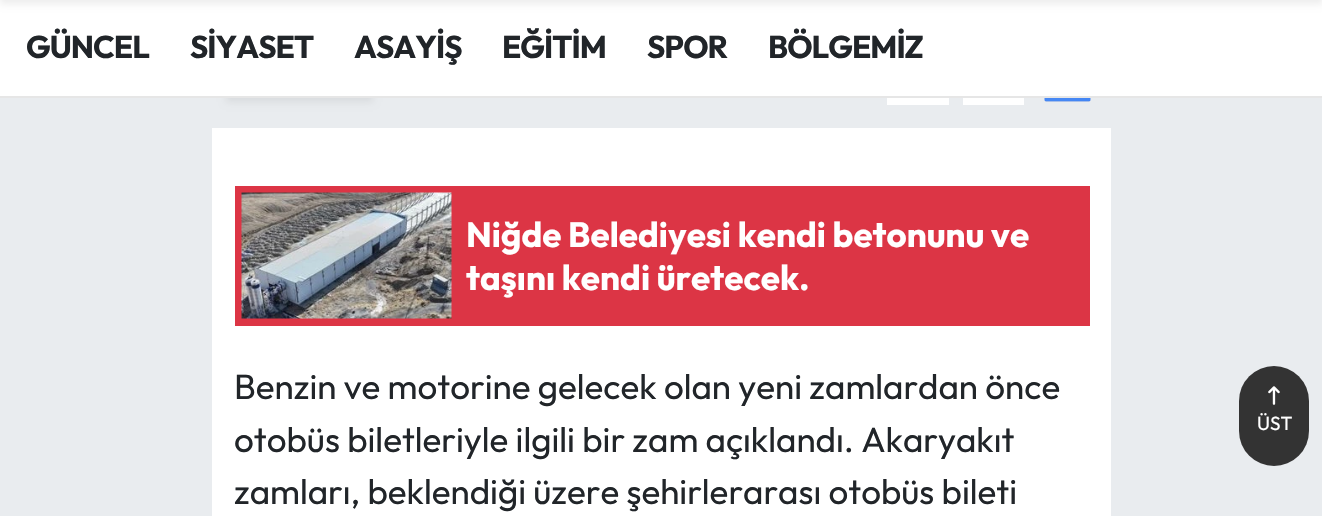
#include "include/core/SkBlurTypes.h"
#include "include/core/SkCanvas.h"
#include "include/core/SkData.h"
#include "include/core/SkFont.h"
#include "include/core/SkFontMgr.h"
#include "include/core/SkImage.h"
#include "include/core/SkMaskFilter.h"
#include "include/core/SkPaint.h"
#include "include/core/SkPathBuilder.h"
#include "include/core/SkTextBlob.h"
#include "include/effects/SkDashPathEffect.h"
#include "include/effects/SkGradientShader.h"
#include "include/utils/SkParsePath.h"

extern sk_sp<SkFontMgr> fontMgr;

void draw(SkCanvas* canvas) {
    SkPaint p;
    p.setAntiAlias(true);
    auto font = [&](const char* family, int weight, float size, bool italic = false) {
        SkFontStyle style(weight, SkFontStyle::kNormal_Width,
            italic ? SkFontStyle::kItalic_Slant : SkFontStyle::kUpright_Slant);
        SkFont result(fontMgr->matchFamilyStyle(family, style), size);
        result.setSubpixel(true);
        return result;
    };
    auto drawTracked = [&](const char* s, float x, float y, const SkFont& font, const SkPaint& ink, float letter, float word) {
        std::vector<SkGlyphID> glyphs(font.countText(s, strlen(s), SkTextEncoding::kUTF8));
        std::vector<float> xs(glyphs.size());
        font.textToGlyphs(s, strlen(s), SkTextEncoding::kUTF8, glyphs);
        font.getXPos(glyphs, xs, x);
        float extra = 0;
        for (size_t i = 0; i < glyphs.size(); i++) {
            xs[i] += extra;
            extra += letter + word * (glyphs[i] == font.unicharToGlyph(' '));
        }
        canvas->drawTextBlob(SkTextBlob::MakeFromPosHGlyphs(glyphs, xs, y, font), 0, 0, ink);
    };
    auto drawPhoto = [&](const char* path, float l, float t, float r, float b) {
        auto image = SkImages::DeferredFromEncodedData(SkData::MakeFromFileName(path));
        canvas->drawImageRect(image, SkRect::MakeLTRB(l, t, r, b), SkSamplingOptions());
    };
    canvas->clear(0xFFE9ECEF);
    p.setColor(0x12000000);
    p.setMaskFilter(SkMaskFilter::MakeBlur(kNormal_SkBlurStyle, 3.5f));
    canvas->drawRect(SkRect::MakeLTRB(226, 44, 373, 102), p);
    p.setMaskFilter(nullptr);
    p.setColor(0xFFFFFFFF);
    canvas->drawRect(SkRect::MakeLTRB(0, 0, 1322, 96), p);
    p.setColor(0x12000000);
    p.setMaskFilter(SkMaskFilter::MakeBlur(kNormal_SkBlurStyle, 3.5f));
    canvas->drawRect(SkRect::MakeLTRB(0, -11, 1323, 4), p);
    p.setMaskFilter(nullptr);
    p.setColor(0xFFE6E6E6);
    canvas->drawRect(SkRect::MakeLTRB(0, 96, 1322, 98), p);
    auto font1 = font("Outfit", 700, 31.5f);
    p.setColor(0xFF212529);
    {
        const struct { const char* s; float x, y; } items[] = {
            {"GÜNCEL", 26, 58},
            {"SİYASET", 190, 58},
            {"ASAYİŞ", 354, 58},
            {"EĞİTİM", 502, 58},
            {"SPOR", 647, 58},
            {"BÖLGEMİZ", 768, 58},
        };
        for (auto [s, x, y] : items) {
            drawTracked(s, x, y, font1, p, -1, 0);
        }
    }
    p.setColor(0xFFFFFFFF);
    canvas->drawRect(SkRect::MakeLTRB(887, 98, 949, 105), p);
    canvas->drawRect(SkRect::MakeLTRB(963, 98, 1024, 105), p);
    drawPhoto("media/1.png", 1044, 98, 1091, 102);
    canvas->drawRect(SkRect::MakeLTRB(212, 128, 1111, 516), p);
    p.setColor(0xFFDC3545);
    canvas->drawRect(SkRect::MakeLTRB(235, 186, 1090, 326), p);
    drawPhoto("media/2.png", 241, 192, 452, 319);
    auto font2 = font("Outfit", 700, 35);
    p.setColor(0xFFFFFFFF);
    canvas->drawString("Niğde Belediyesi kendi betonunu ve", 466, 247, font2, p);
    canvas->drawString("taşını kendi üretecek.", 466, 290, font2, p);
    auto font3 = font("Outfit", 400, 35);
    p.setColor(0xFF212529);
    {
        const struct { const char* s; float x, y; } items[] = {
            {"Benzin ve motorine gelecek olan yeni zamlardan önce", 234, 399},
            {"otobüs biletleriyle ilgili bir zam açıklandı. Akaryakıt", 234, 452},
            {"zamları, beklendiği üzere şehirlerarası otobüs bileti", 234, 504},
        };
        for (auto [s, x, y] : items) {
            canvas->drawString(s, x, y, font3, p);
        }
    }
    p.setColor(0xFF333333);
    canvas->drawRoundRect(SkRect::MakeLTRB(1239, 366, 1309, 466), 35, 35, p);
    drawPhoto("media/3.png", 1268, 386, 1280, 405);
    auto font4 = font("Outfit", 400, 19);
    p.setColor(0xFFFFFFFF);
    canvas->drawString("ÜST", 1257, 430, font4, p);
}
